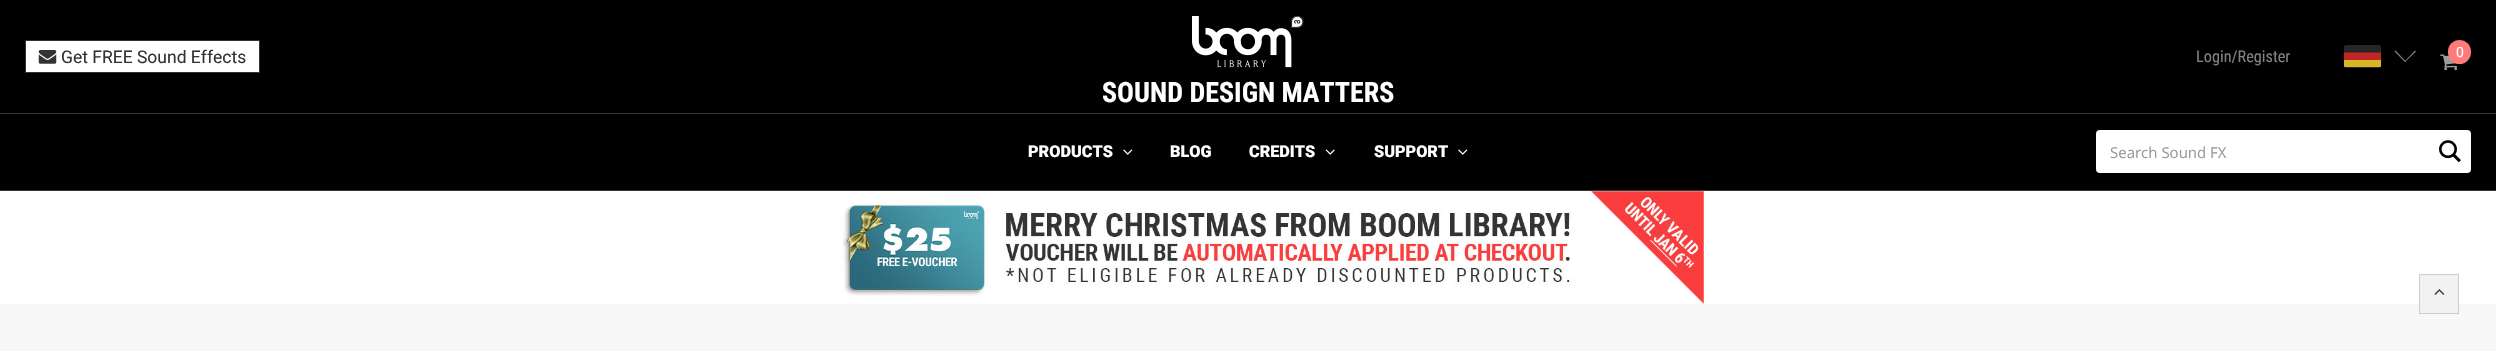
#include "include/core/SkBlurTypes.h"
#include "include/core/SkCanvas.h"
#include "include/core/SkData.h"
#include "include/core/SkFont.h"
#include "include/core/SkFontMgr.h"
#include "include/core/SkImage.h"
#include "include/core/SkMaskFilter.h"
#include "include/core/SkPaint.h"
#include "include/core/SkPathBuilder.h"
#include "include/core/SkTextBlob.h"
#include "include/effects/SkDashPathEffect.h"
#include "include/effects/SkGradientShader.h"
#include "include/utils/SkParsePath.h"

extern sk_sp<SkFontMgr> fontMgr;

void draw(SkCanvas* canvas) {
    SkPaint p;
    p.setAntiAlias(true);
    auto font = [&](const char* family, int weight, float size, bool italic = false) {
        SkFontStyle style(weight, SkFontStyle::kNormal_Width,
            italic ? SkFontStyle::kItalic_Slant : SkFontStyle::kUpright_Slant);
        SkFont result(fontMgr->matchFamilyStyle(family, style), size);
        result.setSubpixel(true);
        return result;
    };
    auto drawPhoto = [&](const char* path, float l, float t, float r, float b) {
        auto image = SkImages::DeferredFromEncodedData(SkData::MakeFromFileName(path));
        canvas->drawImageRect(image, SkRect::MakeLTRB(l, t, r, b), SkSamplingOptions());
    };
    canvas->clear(0xFFFFFFFF);
    p.setColor(0xFF000000);
    canvas->drawRect(SkRect::MakeLTRB(0, 0, 2496, 113), p);
    p.setColor(0xFF343434);
    canvas->drawRect(SkRect::MakeLTRB(0, 113, 2496, 114), p);
    p.setColor(0xFFFFFFFF);
    canvas->drawRect(SkRect::MakeLTRB(25.5f, 40.5f, 259.5f, 72.5f), p);
    p.setStyle(SkPaint::kStroke_Style);
    p.setStrokeWidth(1);
    p.setColor(0xFF333333);
    canvas->drawRect(SkRect::MakeLTRB(25.5f, 40.5f, 259.5f, 72.5f), p);
    drawPhoto("media/1.png", 38, 50, 57, 64);
    auto font1 = font("Roboto", 400, 17.5f);
    p.setStyle(SkPaint::kFill_Style);
    canvas->drawString("Get FREE Sound Effects", 61, 63, font1, p);
    auto font2 = font("Roboto Condensed", 400, 16.25f);
    p.setColor(0xFF838383);
    canvas->drawString("Login/Register", 2196, 62, font2, p);
    drawPhoto("media/2.png", 2343, 45, 2382, 68);
    p.setColor(0xFF808080);
    canvas->drawPath(SkPathBuilder().moveTo(2415, 50.5f).lineTo(2416, 51.5f).lineTo(2405, 62).lineTo(2404.5f, 61.5f).close().detach(), p);
    canvas->drawPath(SkPathBuilder().moveTo(2395.5f, 50.5f).lineTo(2406, 61.5f).lineTo(2405, 62).lineTo(2394.5f, 51.5f).close().detach(), p);
    drawPhoto("media/3.png", 2440, 54, 2458, 71);
    p.setColor(0xFFFF7B7B);
    canvas->drawRoundRect(SkRect::MakeLTRB(2448, 40, 2471, 64), 11.5f, 11.5f, p);
    auto font3 = font("Roboto", 400, 14);
    p.setColor(0xFFFFFFFF);
    canvas->drawString("0", 2456, 57, font3, p);
    drawPhoto("media/4.png", 1192, 16, 1304, 68);
    auto font4 = font("Roboto Condensed", 700, 28);
    canvas->drawString("SOUND DESIGN MATTERS", 1102, 102, font4, p);
    p.setColor(0xFF343434);
    canvas->drawRect(SkRect::MakeLTRB(0, 190, 2496, 191), p);
    p.setColor(0xFF000000);
    canvas->drawRect(SkRect::MakeLTRB(0, 114, 2496, 190), p);
    auto font5 = font("Roboto", 900, 16.25f);
    p.setColor(0xFFFFFFFF);
    canvas->drawString("PRODUCTS", 1028, 157, font5, p);
    drawPhoto("media/5.png", 1123, 149, 1133, 155);
    canvas->drawString("BLOG", 1170, 157, font5, p);
    canvas->drawString("CREDITS", 1249, 157, font5, p);
    drawPhoto("media/6.png", 1325, 149, 1335, 155);
    canvas->drawString("SUPPORT", 1374, 157, font5, p);
    drawPhoto("media/5.png", 1458, 149, 1468, 155);
    canvas->drawRoundRect(SkRect::MakeLTRB(2096, 130, 2471, 173), 4, 4, p);
    auto font6 = font("Open Sans", 400, 15);
    p.setColor(0xFF989898);
    canvas->drawString("Search Sound FX", 2110, 158, font6, p);
    drawPhoto("media/7.png", 2439, 140, 2461, 163);
    drawPhoto("media/8.png", 842, 191, 1704, 304);
    p.setColor(0xFFF7F7F7);
    canvas->drawRect(SkRect::MakeLTRB(0, 304, 2496, 351), p);
    p.setColor(0xFFF2F2F2);
    canvas->drawRect(SkRect::MakeLTRB(2419.5f, 274.5f, 2458.5f, 313.5f), p);
    p.setStyle(SkPaint::kStroke_Style);
    p.setColor(0xFFCDCDCD);
    canvas->drawRect(SkRect::MakeLTRB(2419.5f, 274.5f, 2458.5f, 313.5f), p);
    drawPhoto("media/9.png", 2434, 289, 2445, 295);
}
